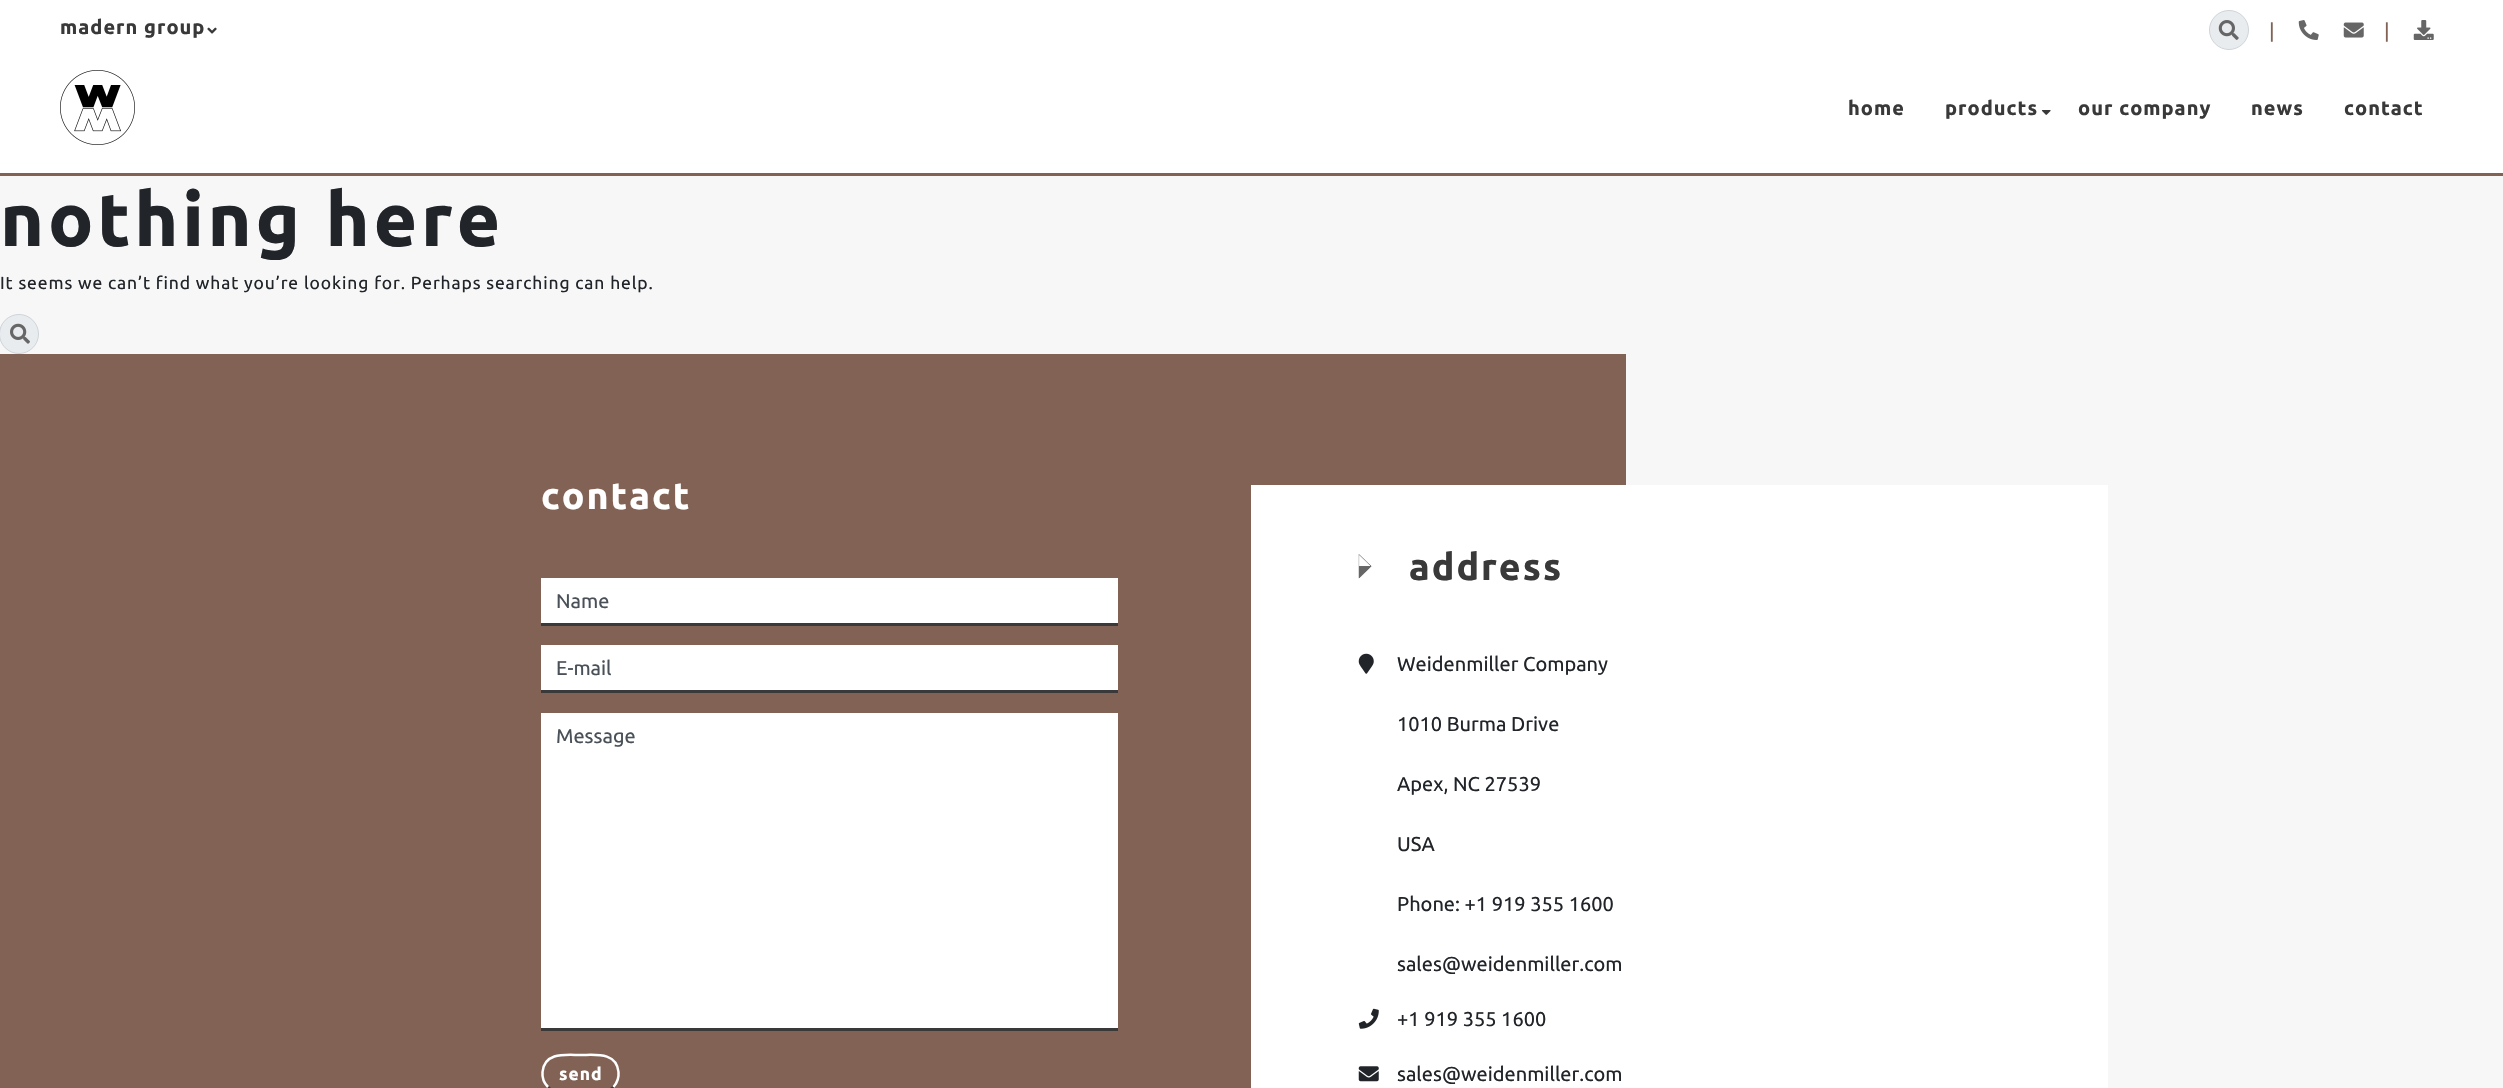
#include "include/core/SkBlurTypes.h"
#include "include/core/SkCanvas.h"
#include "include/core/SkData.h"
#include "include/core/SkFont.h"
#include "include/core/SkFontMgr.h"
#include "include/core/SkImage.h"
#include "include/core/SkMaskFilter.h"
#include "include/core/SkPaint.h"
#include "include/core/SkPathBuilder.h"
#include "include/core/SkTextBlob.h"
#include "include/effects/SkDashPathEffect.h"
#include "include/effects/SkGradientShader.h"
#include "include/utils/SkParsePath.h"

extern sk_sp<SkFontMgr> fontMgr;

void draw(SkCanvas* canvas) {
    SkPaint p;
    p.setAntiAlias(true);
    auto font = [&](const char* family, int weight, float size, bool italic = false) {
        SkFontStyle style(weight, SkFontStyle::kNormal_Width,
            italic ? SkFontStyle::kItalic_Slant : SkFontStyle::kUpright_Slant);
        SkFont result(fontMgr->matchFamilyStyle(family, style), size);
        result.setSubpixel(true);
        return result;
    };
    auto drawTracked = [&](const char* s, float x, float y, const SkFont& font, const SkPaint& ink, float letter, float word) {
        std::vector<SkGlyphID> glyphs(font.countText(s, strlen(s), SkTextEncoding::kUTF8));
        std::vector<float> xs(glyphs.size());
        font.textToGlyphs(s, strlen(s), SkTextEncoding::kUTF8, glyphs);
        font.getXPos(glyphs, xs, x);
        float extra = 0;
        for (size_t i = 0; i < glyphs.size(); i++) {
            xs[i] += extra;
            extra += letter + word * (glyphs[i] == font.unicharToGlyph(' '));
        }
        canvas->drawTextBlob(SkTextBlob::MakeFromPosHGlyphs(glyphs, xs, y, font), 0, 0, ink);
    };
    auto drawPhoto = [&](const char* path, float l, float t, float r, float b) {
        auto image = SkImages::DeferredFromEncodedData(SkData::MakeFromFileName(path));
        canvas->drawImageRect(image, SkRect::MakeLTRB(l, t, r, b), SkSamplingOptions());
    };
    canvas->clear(0xFFF7F7F7);
    p.setColor(0xFFFFFFFF);
    canvas->drawRect(SkRect::MakeLTRB(0, 0, 2503, 173), p);
    auto font1 = font("Ubuntu", 700, 20);
    p.setColor(0xFF393939);
    drawTracked("madern group", 60, 34, font1, p, 1, 0);
    drawPhoto("media/1.png", 207, 27, 217, 34);
    p.setColor(0xFFE9ECEF);
    canvas->drawCircle(2229, 30, 19.5f, p);
    p.setStyle(SkPaint::kStroke_Style);
    p.setStrokeWidth(1);
    p.setColor(0xFFCED4DA);
    canvas->drawCircle(2229, 30, 19.5f, p);
    drawPhoto("media/2.png", 2218, 20, 2239, 40);
    auto font2 = font("Ubuntu", 400, 20);
    p.setStyle(SkPaint::kFill_Style);
    p.setColor(0xFF816254);
    canvas->drawString("|", 2269, 38, font2, p);
    drawPhoto("media/3.png", 2298, 20, 2319, 40);
    drawPhoto("media/4.png", 2343, 22, 2364, 38);
    canvas->drawString("|", 2384, 38, font2, p);
    drawPhoto("media/5.png", 2413, 20, 2434, 40);
    drawPhoto("media/6.png", 60, 70, 135, 145);
    p.setColor(0xFF393939);
    drawTracked("home", 1848, 115, font1, p, 1, 0);
    drawTracked("products", 1945, 115, font1, p, 1, 0);
    drawPhoto("media/7.png", 2041, 110, 2051, 115);
    {
        const struct { const char* s; float x, y; } items[] = {
            {"our company", 2078, 115},
            {"news", 2251, 115},
            {"contact", 2344, 115},
        };
        for (auto [s, x, y] : items) {
            drawTracked(s, x, y, font1, p, 1, 0);
        }
    }
    p.setColor(0xFF816254);
    canvas->drawRect(SkRect::MakeLTRB(0, 173, 2503, 176), p);
    auto font3 = font("Ubuntu", 700, 75);
    p.setColor(0xFF212529);
    drawTracked("nothing here", 0, 246, font3, p, 3.75f, 0);
    auto font4 = font("Ubuntu", 400, 17.5f);
    drawTracked("It seems we can’t find what you’re looking for. Perhaps searching can help.", 0, 289, font4, p, 0.88f, 0);
    p.setColor(0xFFE9ECEF);
    canvas->drawCircle(19, 334, 19.5f, p);
    p.setStyle(SkPaint::kStroke_Style);
    p.setColor(0xFFCED4DA);
    canvas->drawCircle(19, 334, 19.5f, p);
    drawPhoto("media/8.png", 10, 323, 30, 344);
    p.setStyle(SkPaint::kFill_Style);
    p.setColor(0xFF816254);
    canvas->drawRect(SkRect::MakeLTRB(0, 354, 1251, 1088), p);
    canvas->drawRect(SkRect::MakeLTRB(1251, 354, 1626, 485), p);
    auto font5 = font("Ubuntu", 700, 37.5f);
    p.setColor(0xFFFFFFFF);
    drawTracked("contact", 541, 509, font5, p, 2, 0);
    canvas->drawRect(SkRect::MakeLTRB(541, 578, 1118, 623), p);
    p.setColor(0xFF393939);
    canvas->drawRect(SkRect::MakeLTRB(541, 623, 1118, 626), p);
    p.setColor(0xFF495057);
    canvas->drawString("Name", 556, 608, font2, p);
    p.setColor(0xFFFFFFFF);
    canvas->drawRect(SkRect::MakeLTRB(541, 645, 1118, 690), p);
    p.setColor(0xFF393939);
    canvas->drawRect(SkRect::MakeLTRB(541, 690, 1118, 693), p);
    p.setColor(0xFF495057);
    canvas->drawString("E-mail", 556, 675, font2, p);
    p.setColor(0xFFFFFFFF);
    canvas->drawRect(SkRect::MakeLTRB(541, 713, 1118, 1028), p);
    p.setColor(0xFF393939);
    canvas->drawRect(SkRect::MakeLTRB(541, 1028, 1118, 1031), p);
    p.setColor(0xFF495057);
    canvas->drawString("Message", 556, 743, font2, p);
    p.setStyle(SkPaint::kStroke_Style);
    p.setStrokeWidth(2.5f);
    p.setColor(0xFF393939);
    canvas->drawPath(SkPathBuilder().moveTo(613.5f, 1087).cubicTo(609.5f, 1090.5f, 605, 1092.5f, 600, 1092.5f).lineTo(561, 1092.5f).cubicTo(556.5f, 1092.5f, 551.5f, 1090.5f, 548, 1087).detach(), p);
    p.setColor(0xFFFFFFFF);
    canvas->drawPath(SkPathBuilder().moveTo(548, 1087).cubicTo(544, 1083, 542, 1077.5f, 542.5f, 1072).cubicTo(544.5f, 1051.5f, 566.5f, 1055, 580.5f, 1055).cubicTo(595, 1055, 616.5f, 1051.5f, 618.5f, 1072).cubicTo(619, 1077.5f, 617, 1083, 613.5f, 1087).detach(), p);
    auto font6 = font("Ubuntu", 700, 17.5f);
    p.setStyle(SkPaint::kFill_Style);
    drawTracked("send", 559, 1080, font6, p, 1, 0);
    canvas->drawRect(SkRect::MakeLTRB(1251, 485, 2108, 1088), p);
    drawPhoto("media/9.png", 1358, 554, 1372, 579);
    p.setColor(0xFF393939);
    drawTracked("address", 1409, 580, font5, p, 2, 0);
    drawPhoto("media/10.png", 1358, 653, 1374, 674);
    p.setColor(0xFF212529);
    {
        const struct { const char* s; float x, y; } items[] = {
            {"Weidenmiller Company", 1397, 671},
            {"1010 Burma Drive", 1397, 731},
            {"Apex, NC 27539", 1397, 791},
            {"USA", 1397, 851},
            {"Phone: +1 919 355 1600", 1397, 911},
            {"sales@weidenmiller.com", 1397, 971},
        };
        for (auto [s, x, y] : items) {
            canvas->drawString(s, x, y, font2, p);
        }
    }
    drawPhoto("media/11.png", 1358, 1008, 1379, 1029);
    canvas->drawString("+1 919 355 1600", 1397, 1026, font2, p);
    drawPhoto("media/12.png", 1358, 1066, 1379, 1082);
    canvas->drawString("sales@weidenmiller.com", 1397, 1081, font2, p);
}
